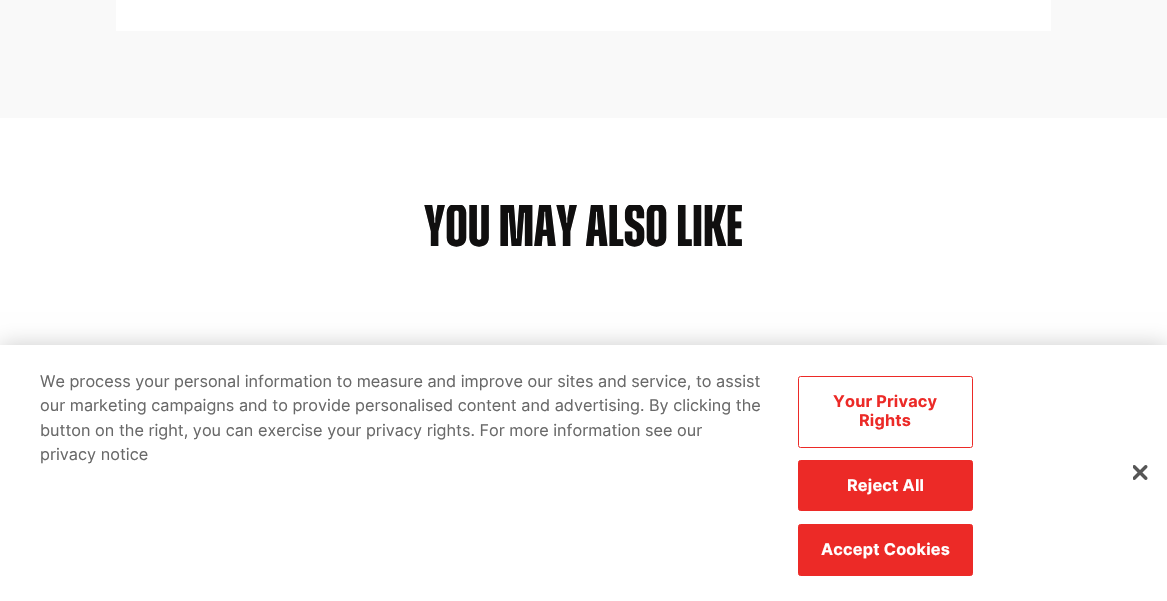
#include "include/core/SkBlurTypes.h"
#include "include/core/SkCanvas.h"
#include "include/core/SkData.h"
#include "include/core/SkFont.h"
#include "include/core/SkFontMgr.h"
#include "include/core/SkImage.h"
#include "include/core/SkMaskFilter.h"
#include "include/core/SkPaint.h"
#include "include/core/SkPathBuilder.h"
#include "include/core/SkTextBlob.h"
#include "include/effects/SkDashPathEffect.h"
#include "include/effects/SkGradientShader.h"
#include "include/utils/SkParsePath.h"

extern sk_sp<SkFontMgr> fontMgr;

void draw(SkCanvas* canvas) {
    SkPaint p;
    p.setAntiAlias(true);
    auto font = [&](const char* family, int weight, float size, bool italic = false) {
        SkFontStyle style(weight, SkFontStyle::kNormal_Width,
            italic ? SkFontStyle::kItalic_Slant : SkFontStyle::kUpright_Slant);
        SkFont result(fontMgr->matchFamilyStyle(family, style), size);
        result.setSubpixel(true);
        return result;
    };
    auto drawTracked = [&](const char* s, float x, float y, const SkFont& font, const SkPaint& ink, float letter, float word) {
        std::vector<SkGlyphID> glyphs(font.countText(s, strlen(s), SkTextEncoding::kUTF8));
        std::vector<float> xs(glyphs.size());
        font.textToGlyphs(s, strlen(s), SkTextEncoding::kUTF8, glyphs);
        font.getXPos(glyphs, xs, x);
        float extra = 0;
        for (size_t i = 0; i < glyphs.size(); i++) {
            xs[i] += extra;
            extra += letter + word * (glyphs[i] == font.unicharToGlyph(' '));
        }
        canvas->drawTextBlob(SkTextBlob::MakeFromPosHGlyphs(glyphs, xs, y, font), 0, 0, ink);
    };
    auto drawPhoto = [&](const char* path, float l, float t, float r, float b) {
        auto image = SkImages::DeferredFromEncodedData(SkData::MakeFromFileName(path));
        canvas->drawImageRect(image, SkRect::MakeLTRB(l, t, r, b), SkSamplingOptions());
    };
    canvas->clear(0xFFFFFFFF);
    p.setColor(0xFFF9F9F9);
    canvas->drawRect(SkRect::MakeLTRB(0, 0, 1167, 118), p);
    p.setColor(0xFFFFFFFF);
    canvas->drawRect(SkRect::MakeLTRB(116, 0, 1051, 31), p);
    canvas->save();
    canvas->clipRect(SkRect::MakeLTRB(0, 205, 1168, 353));
    auto font1 = font("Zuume", 700, 59.5f);
    p.setColor(0xFF100F0F);
    canvas->drawString("YOU MAY ALSO LIKE", 424, 246, font1, p);
    canvas->restore();
    p.setColor(0x33000000);
    p.setMaskFilter(SkMaskFilter::MakeBlur(kNormal_SkBlurStyle, 11));
    canvas->drawRect(SkRect::MakeLTRB(0, 345, 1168, 601), p);
    p.setMaskFilter(nullptr);
    p.setColor(0xFFFFFFFF);
    canvas->drawRect(SkRect::MakeLTRB(0, 345, 1167, 601), p);
    auto font2 = font("Inter", 400, 16.25f);
    p.setColor(0xFF696969);
    {
        const struct { const char* s; float x, y; } items[] = {
            {"We process your personal information to measure and improve our sites and service, to assist", 40, 387},
            {"our marketing campaigns and to provide personalised content and advertising. By clicking the", 40, 411},
            {"button on the right, you can exercise your privacy rights. For more information see our", 40, 436},
            {"privacy notice", 40, 460},
        };
        for (auto [s, x, y] : items) {
            canvas->drawString(s, x, y, font2, p);
        }
    }
    p.setStyle(SkPaint::kStroke_Style);
    p.setStrokeWidth(1);
    p.setColor(0xFFEC2A27);
    canvas->drawRoundRect(SkRect::MakeLTRB(798.5f, 376.5f, 972.5f, 447.5f), 2, 2, p);
    auto font3 = font("Inter", 700, 16.25f);
    p.setStyle(SkPaint::kFill_Style);
    drawTracked("Your Privacy", 833, 407, font3, p, 0.2f, 0);
    drawTracked("Rights", 859, 426, font3, p, 0.2f, 0);
    canvas->drawRoundRect(SkRect::MakeLTRB(798.5f, 460.5f, 972.5f, 510.5f), 2, 2, p);
    p.setStyle(SkPaint::kStroke_Style);
    canvas->drawRoundRect(SkRect::MakeLTRB(798.5f, 460.5f, 972.5f, 510.5f), 2, 2, p);
    p.setStyle(SkPaint::kFill_Style);
    p.setColor(0xFFFFFFFF);
    drawTracked("Reject All", 847, 491, font3, p, 0.2f, 0);
    p.setColor(0xFFEC2A27);
    canvas->drawRoundRect(SkRect::MakeLTRB(798.5f, 524.5f, 972.5f, 575.5f), 2, 2, p);
    p.setStyle(SkPaint::kStroke_Style);
    canvas->drawRoundRect(SkRect::MakeLTRB(798.5f, 524.5f, 972.5f, 575.5f), 2, 2, p);
    p.setStyle(SkPaint::kFill_Style);
    p.setColor(0xFFFFFFFF);
    drawTracked("Accept Cookies", 821, 555, font3, p, 0.2f, 0);
    drawPhoto("media/1.png", 1133, 465, 1148, 480);
}
